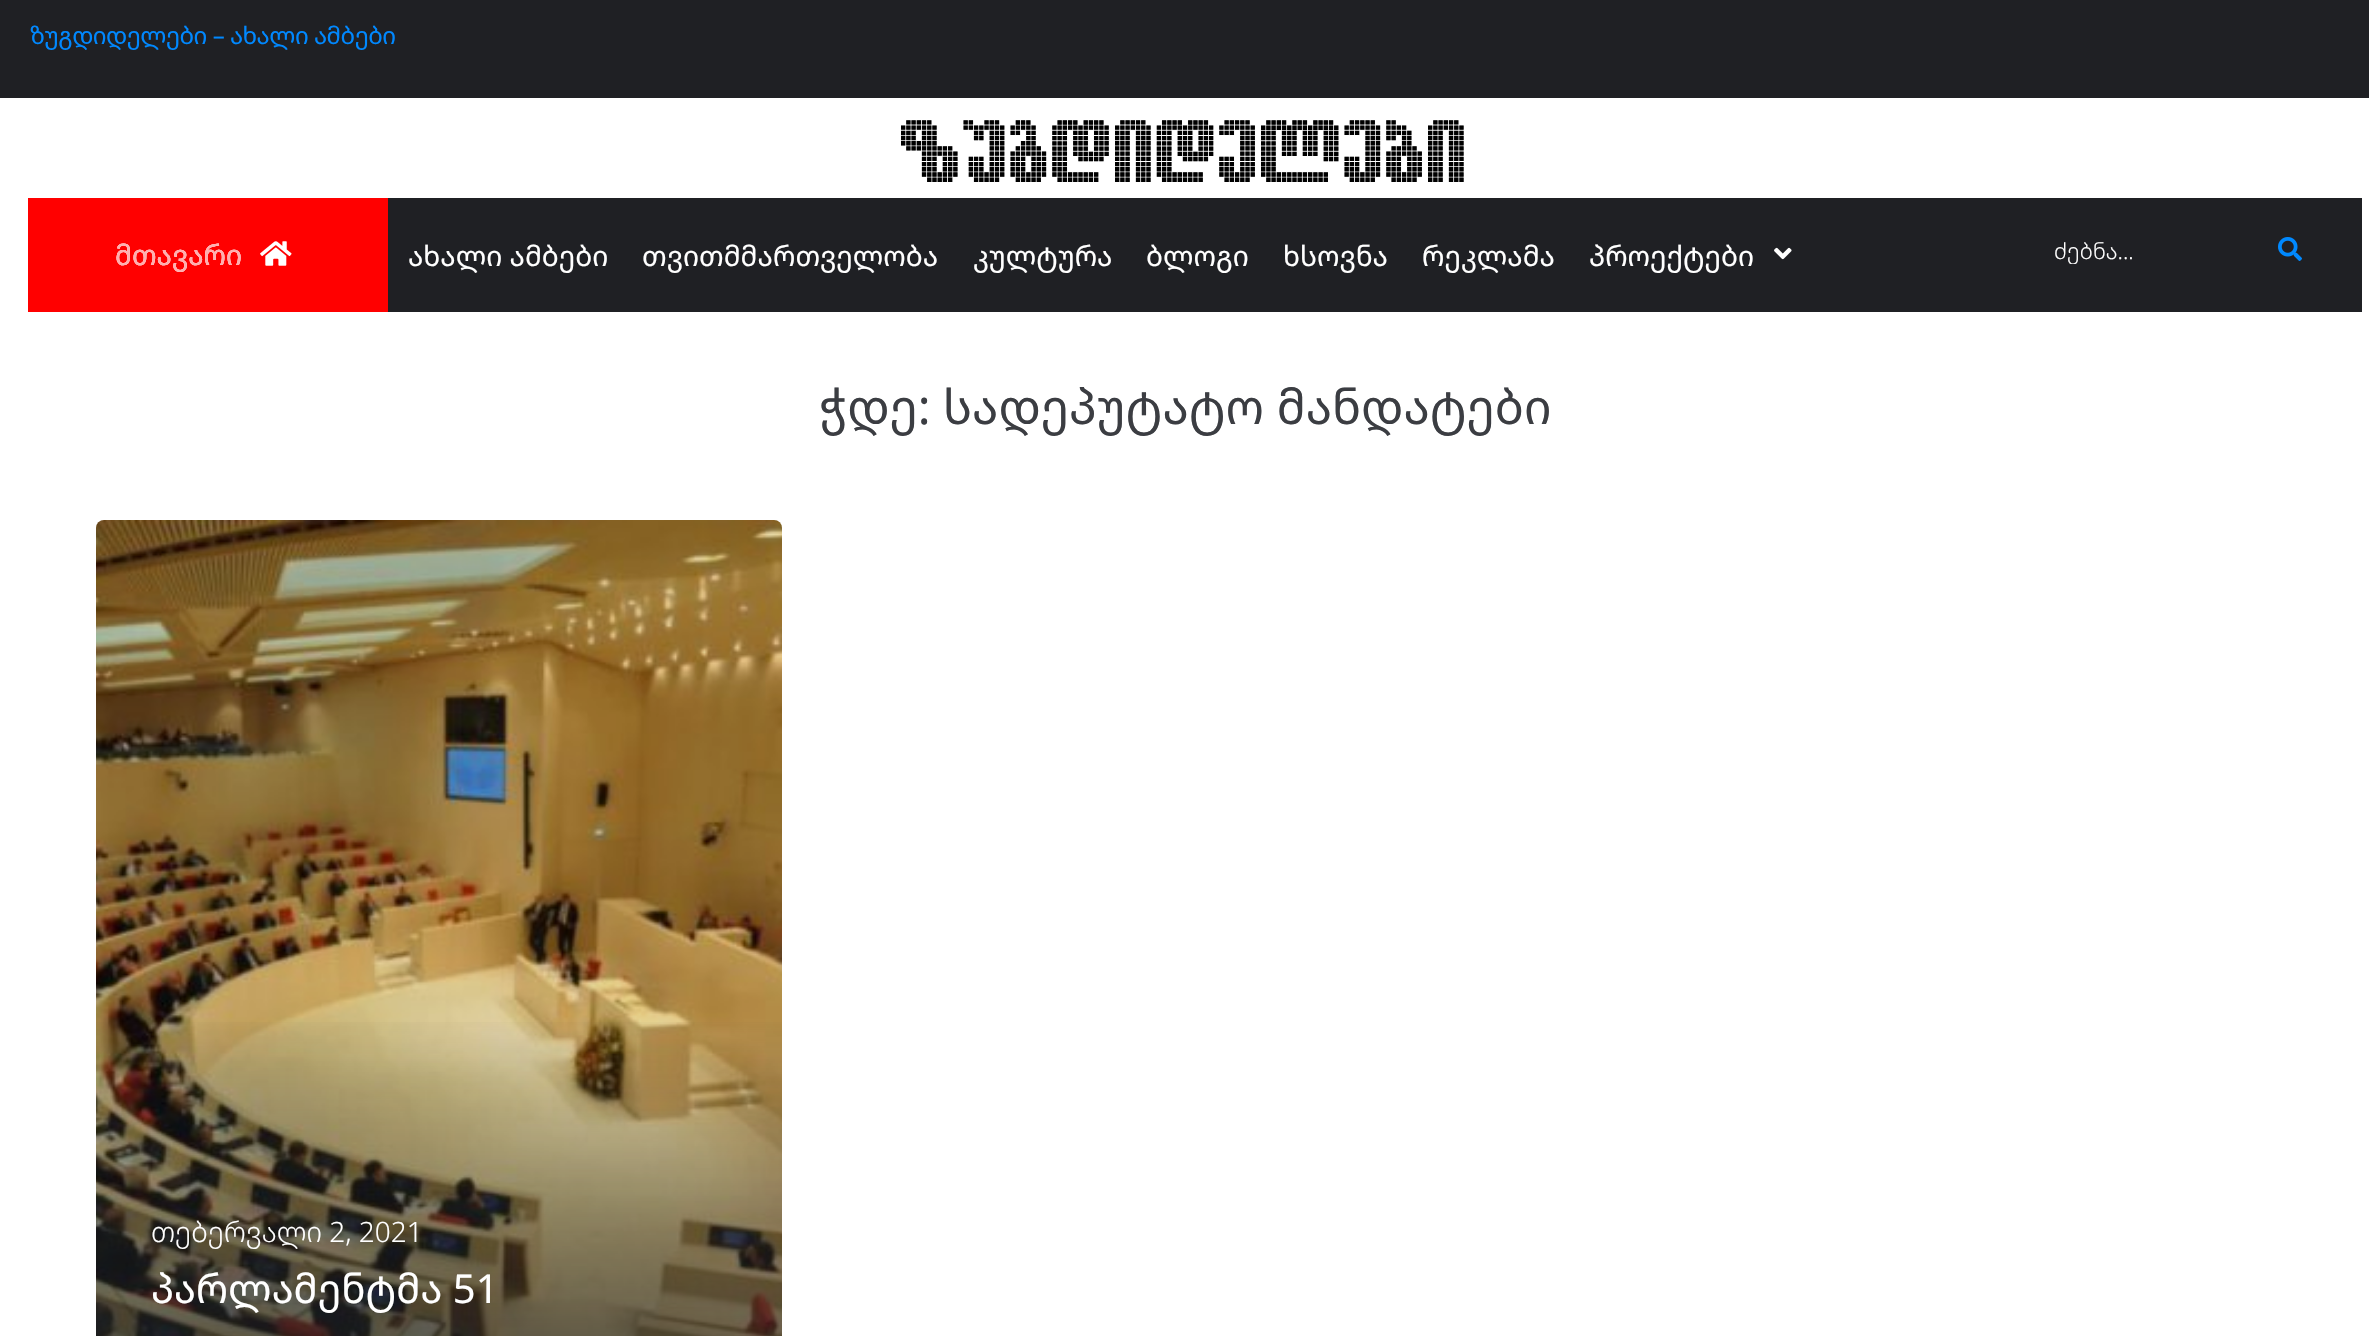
#include "include/core/SkBlurTypes.h"
#include "include/core/SkCanvas.h"
#include "include/core/SkData.h"
#include "include/core/SkFont.h"
#include "include/core/SkFontMgr.h"
#include "include/core/SkImage.h"
#include "include/core/SkMaskFilter.h"
#include "include/core/SkPaint.h"
#include "include/core/SkPathBuilder.h"
#include "include/core/SkTextBlob.h"
#include "include/effects/SkDashPathEffect.h"
#include "include/effects/SkGradientShader.h"
#include "include/utils/SkParsePath.h"

extern sk_sp<SkFontMgr> fontMgr;

void draw(SkCanvas* canvas) {
    SkPaint p;
    p.setAntiAlias(true);
    auto font = [&](const char* family, int weight, float size, bool italic = false) {
        SkFontStyle style(weight, SkFontStyle::kNormal_Width,
            italic ? SkFontStyle::kItalic_Slant : SkFontStyle::kUpright_Slant);
        SkFont result(fontMgr->matchFamilyStyle(family, style), size);
        result.setSubpixel(true);
        return result;
    };
    auto drawTracked = [&](const char* s, float x, float y, const SkFont& font, const SkPaint& ink, float letter, float word) {
        std::vector<SkGlyphID> glyphs(font.countText(s, strlen(s), SkTextEncoding::kUTF8));
        std::vector<float> xs(glyphs.size());
        font.textToGlyphs(s, strlen(s), SkTextEncoding::kUTF8, glyphs);
        font.getXPos(glyphs, xs, x);
        float extra = 0;
        for (size_t i = 0; i < glyphs.size(); i++) {
            xs[i] += extra;
            extra += letter + word * (glyphs[i] == font.unicharToGlyph(' '));
        }
        canvas->drawTextBlob(SkTextBlob::MakeFromPosHGlyphs(glyphs, xs, y, font), 0, 0, ink);
    };
    auto drawPhoto = [&](const char* path, float l, float t, float r, float b) {
        auto image = SkImages::DeferredFromEncodedData(SkData::MakeFromFileName(path));
        canvas->drawImageRect(image, SkRect::MakeLTRB(l, t, r, b), SkSamplingOptions());
    };
    canvas->clear(0xFFFFFFFF);
    p.setColor(0xFF1F2024);
    canvas->drawRect(SkRect::MakeLTRB(0, 0, 2369, 98), p);
    auto font1 = font("Noto Sans Georgian", 400, 24);
    p.setColor(0xFF0088FF);
    drawTracked("ზუგდიდელები – ახალი ამბები", 30, 44, font1, p, -0.5f, 0);
    auto font2 = font("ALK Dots", 700, 60);
    p.setColor(0xFF000000);
    canvas->drawString("ზუგდიდელები", 901, 170, font2, p);
    p.setColor(0xFFFF0000);
    canvas->drawRect(SkRect::MakeLTRB(28, 198, 388, 312), p);
    auto font3 = font("Noto Sans Georgian", 400, 28);
    p.setColor(0xFFFFFFFF);
    canvas->drawString("მთავარი", 115, 265, font3, p);
    drawPhoto("media/1.png", 260, 241, 292, 266);
    p.setColor(0xFFFFAEAE);
    canvas->drawString("მთავარი", 115, 265, font3, p);
    p.setColor(0xFF1F2024);
    canvas->drawRect(SkRect::MakeLTRB(388, 198, 2362, 312), p);
    p.setColor(0xFFFFFFFF);
    {
        const struct { const char* s; float x, y; } items[] = {
            {"ახალი ამბები", 408, 266},
            {"თვითმმართველობა", 642, 266},
            {"კულტურა", 973, 266},
            {"ბლოგი", 1146, 266},
            {"ხსოვნა", 1283, 266},
            {"რეკლამა", 1422, 266},
            {"პროექტები", 1589, 266},
        };
        for (auto [s, x, y] : items) {
            canvas->drawString(s, x, y, font3, p);
        }
    }
    drawPhoto("media/2.png", 1774, 247, 1792, 260);
    canvas->save();
    canvas->clipRect(SkRect::MakeLTRB(2054, 234, 2240, 264));
    auto font4 = font("Noto Sans Georgian", 300, 22);
    canvas->drawString("ძებნა...", 2054, 259, font4, p);
    canvas->restore();
    drawPhoto("media/3.png", 2278, 237, 2302, 261);
    auto font5 = font("Noto Sans Georgian", 400, 48);
    p.setColor(0xFF3B3D42);
    canvas->drawString("ჭდე: სადეპუტატო მანდატები", 819, 424, font5, p);
    drawPhoto("media/4.png", 96, 520, 782, 1336);
    p.setColor(0x1A000000);
    canvas->drawRoundRect(SkRect::MakeLTRB(96, 520, 782, 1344), 8, 8, p);
    {
        const SkColor colors[] = {0x007ABCFF, 0x00212429, 0xA8212429, 0xE3212429, 0xE6212429};
        const float stops[] = {0, 0.15f, 0.76f, 0.97f, 0.98f};
        const SkPoint ends[] = {{439, 920}, {439, 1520}};
        p.setShader(SkGradientShader::MakeLinear(ends, colors, stops, 5, SkTileMode::kClamp));
        p.setAlpha(255);
    }
    canvas->drawRect(SkRect::MakeLTRB(96, 1022, 782, 1336), p);
    auto font6 = font("Noto Sans Georgian", 300, 28);
    p.setShader(nullptr);
    p.setColor(0xFFFFFFFF);
    canvas->drawString("თებერვალი 2, 2021", 151, 1242, font6, p);
    auto font7 = font("Noto Sans Georgian", 400, 40);
    canvas->drawString("პარლამენტმა 51", 151, 1303, font7, p);
}
